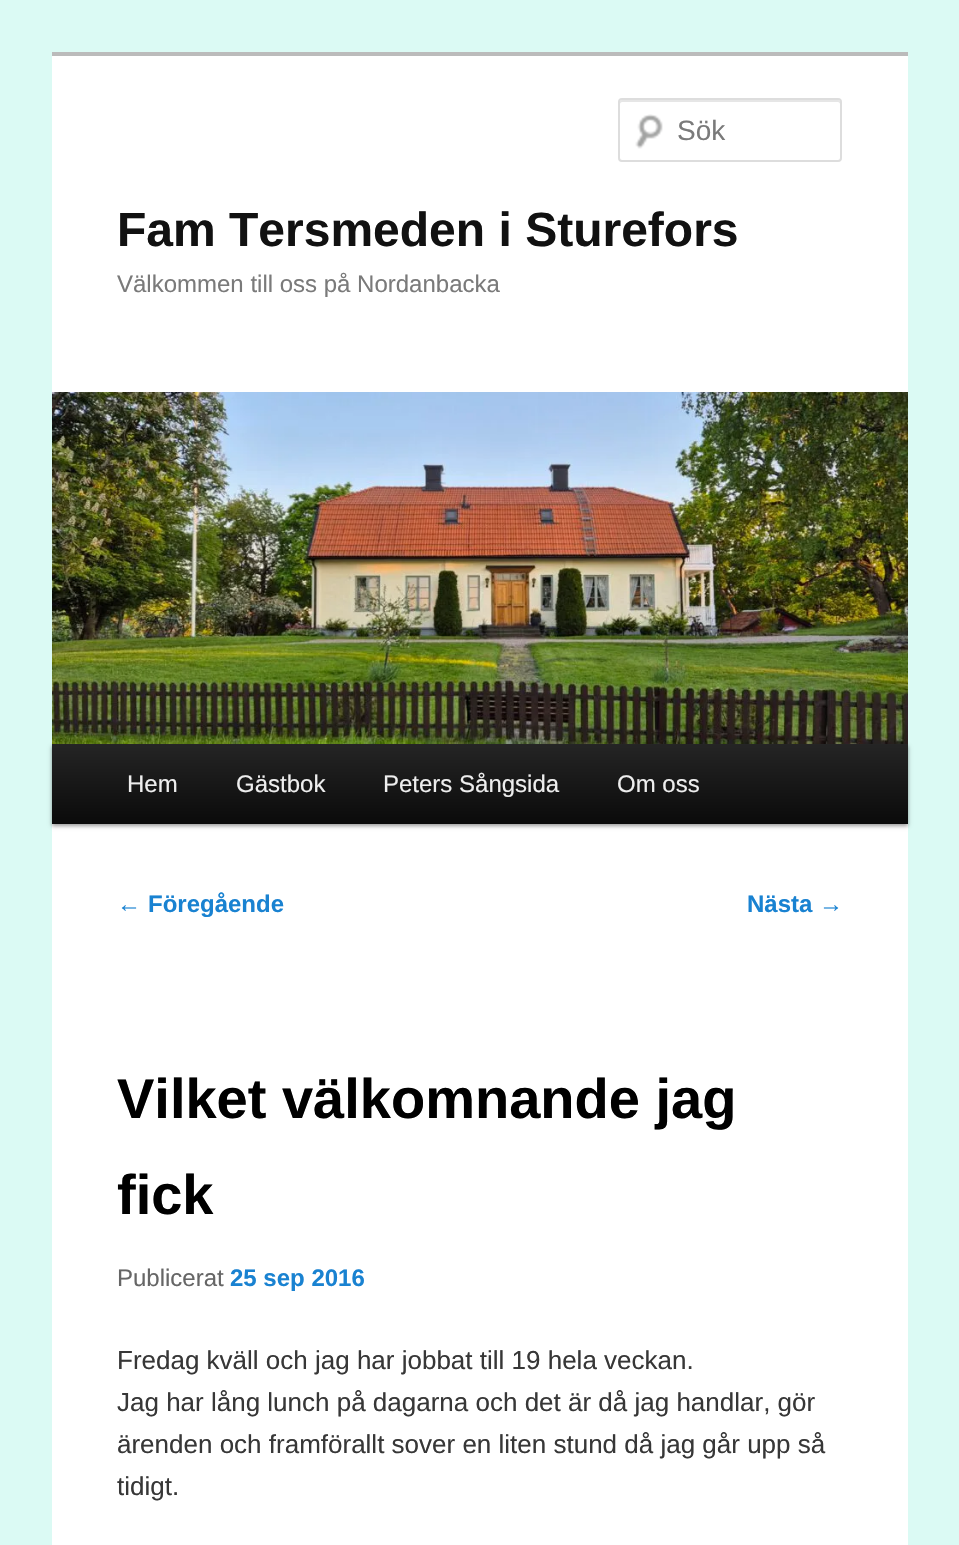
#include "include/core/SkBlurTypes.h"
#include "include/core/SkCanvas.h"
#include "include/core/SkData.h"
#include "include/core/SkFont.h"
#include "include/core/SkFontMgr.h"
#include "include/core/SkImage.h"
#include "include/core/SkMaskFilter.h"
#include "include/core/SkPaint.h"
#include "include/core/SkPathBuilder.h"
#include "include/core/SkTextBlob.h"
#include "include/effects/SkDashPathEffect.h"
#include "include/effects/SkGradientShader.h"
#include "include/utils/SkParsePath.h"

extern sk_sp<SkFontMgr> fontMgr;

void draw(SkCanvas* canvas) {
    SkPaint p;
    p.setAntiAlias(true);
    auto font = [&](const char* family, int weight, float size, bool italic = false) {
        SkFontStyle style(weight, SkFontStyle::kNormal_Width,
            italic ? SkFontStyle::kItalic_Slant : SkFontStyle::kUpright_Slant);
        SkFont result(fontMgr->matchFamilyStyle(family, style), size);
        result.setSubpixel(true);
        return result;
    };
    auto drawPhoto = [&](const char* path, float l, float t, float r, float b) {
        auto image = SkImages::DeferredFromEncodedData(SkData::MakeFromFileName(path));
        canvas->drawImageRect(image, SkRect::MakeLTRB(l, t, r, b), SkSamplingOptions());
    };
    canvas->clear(0xFFDBFAF4);
    p.setColor(0xFFFFFFFF);
    canvas->drawRect(SkRect::MakeLTRB(52, 56, 908, 1545), p);
    p.setColor(0xFFBBBBBB);
    canvas->drawRect(SkRect::MakeLTRB(52, 52, 908, 56), p);
    drawPhoto("media/1.png", 635, 114, 663, 149);
    p.setColor(0xFFE6E6E6);
    canvas->drawPath(SkPathBuilder().moveTo(622, 102).lineTo(838, 102).cubicTo(839, 102, 840, 103, 840, 104).lineTo(840, 102).cubicTo(840, 101, 839, 100, 838, 100).lineTo(622, 100).cubicTo(621, 100, 620, 101, 620, 102).lineTo(620, 104).cubicTo(620, 103, 621, 102, 622, 102).close().detach(), p);
    p.setStyle(SkPaint::kStroke_Style);
    p.setStrokeWidth(2);
    p.setColor(0xFFDDDDDD);
    canvas->drawRoundRect(SkRect::MakeLTRB(619, 99, 841, 161), 3, 3, p);
    auto font1 = font("Liberation Sans", 400, 28);
    p.setStyle(SkPaint::kFill_Style);
    p.setColor(0xFF7A7A7A);
    canvas->drawString("Sök", 677, 140, font1, p);
    auto font2 = font("Liberation Sans", 700, 48);
    p.setColor(0xFF111111);
    canvas->drawString("Fam Tersmeden i Sturefors", 117, 246, font2, p);
    auto font3 = font("Liberation Sans", 400, 24);
    p.setColor(0xFF7A7A7A);
    canvas->drawString("Välkommen till oss på Nordanbacka", 117, 292, font3, p);
    p.setColor(0x66000000);
    p.setMaskFilter(SkMaskFilter::MakeBlur(kNormal_SkBlurStyle, 2));
    canvas->drawRect(SkRect::MakeLTRB(52, 746, 908, 826), p);
    p.setMaskFilter(nullptr);
    drawPhoto("media/2.png", 52, 392, 908, 744);
    {
        const SkColor colors[] = {0xFF252525, 0xFF0A0A0A};
        const float stops[] = {0, 1};
        const SkPoint ends[] = {{480, 744}, {480, 824}};
        p.setShader(SkGradientShader::MakeLinear(ends, colors, stops, 2, SkTileMode::kClamp));
        p.setAlpha(255);
    }
    canvas->drawRect(SkRect::MakeLTRB(52, 744, 908, 824), p);
    p.setShader(nullptr);
    p.setColor(0xFFEEEEEE);
    {
        const struct { const char* s; float x, y; } items[] = {
            {"Hem", 127, 792},
            {"Gästbok", 236, 792},
            {"Peters Sångsida", 383, 792},
            {"Om oss", 617, 792},
        };
        for (auto [s, x, y] : items) {
            canvas->drawString(s, x, y, font3, p);
        }
    }
    p.setColor(0xFF1982D1);
    canvas->drawString("←", 117, 912, font3, p);
    auto font4 = font("Liberation Sans", 700, 24);
    canvas->drawString("Föregående", 148, 912, font4, p);
    canvas->drawString("Nästa", 747, 912, font4, p);
    canvas->drawString("→", 819, 912, font3, p);
    auto font5 = font("Liberation Sans", 700, 56);
    p.setColor(0xFF000000);
    canvas->drawString("Vilket välkomnande jag", 117, 1118, font5, p);
    canvas->drawString("fick", 117, 1214, font5, p);
    p.setColor(0xFF666666);
    canvas->drawString("Publicerat", 117, 1286, font3, p);
    p.setColor(0xFF1982D1);
    canvas->drawString("25 sep 2016", 230, 1286, font4, p);
    auto font6 = font("Liberation Sans", 400, 26);
    p.setColor(0xFF373737);
    {
        const struct { const char* s; float x, y; } items[] = {
            {"Fredag kväll och jag har jobbat till 19 hela veckan.", 117, 1369},
            {"Jag har lång lunch på dagarna och det är då jag handlar, gör", 117, 1411},
            {"ärenden och framförallt sover en liten stund då jag går upp så", 117, 1453},
            {"tidigt.", 117, 1495},
        };
        for (auto [s, x, y] : items) {
            canvas->drawString(s, x, y, font6, p);
        }
    }
}
